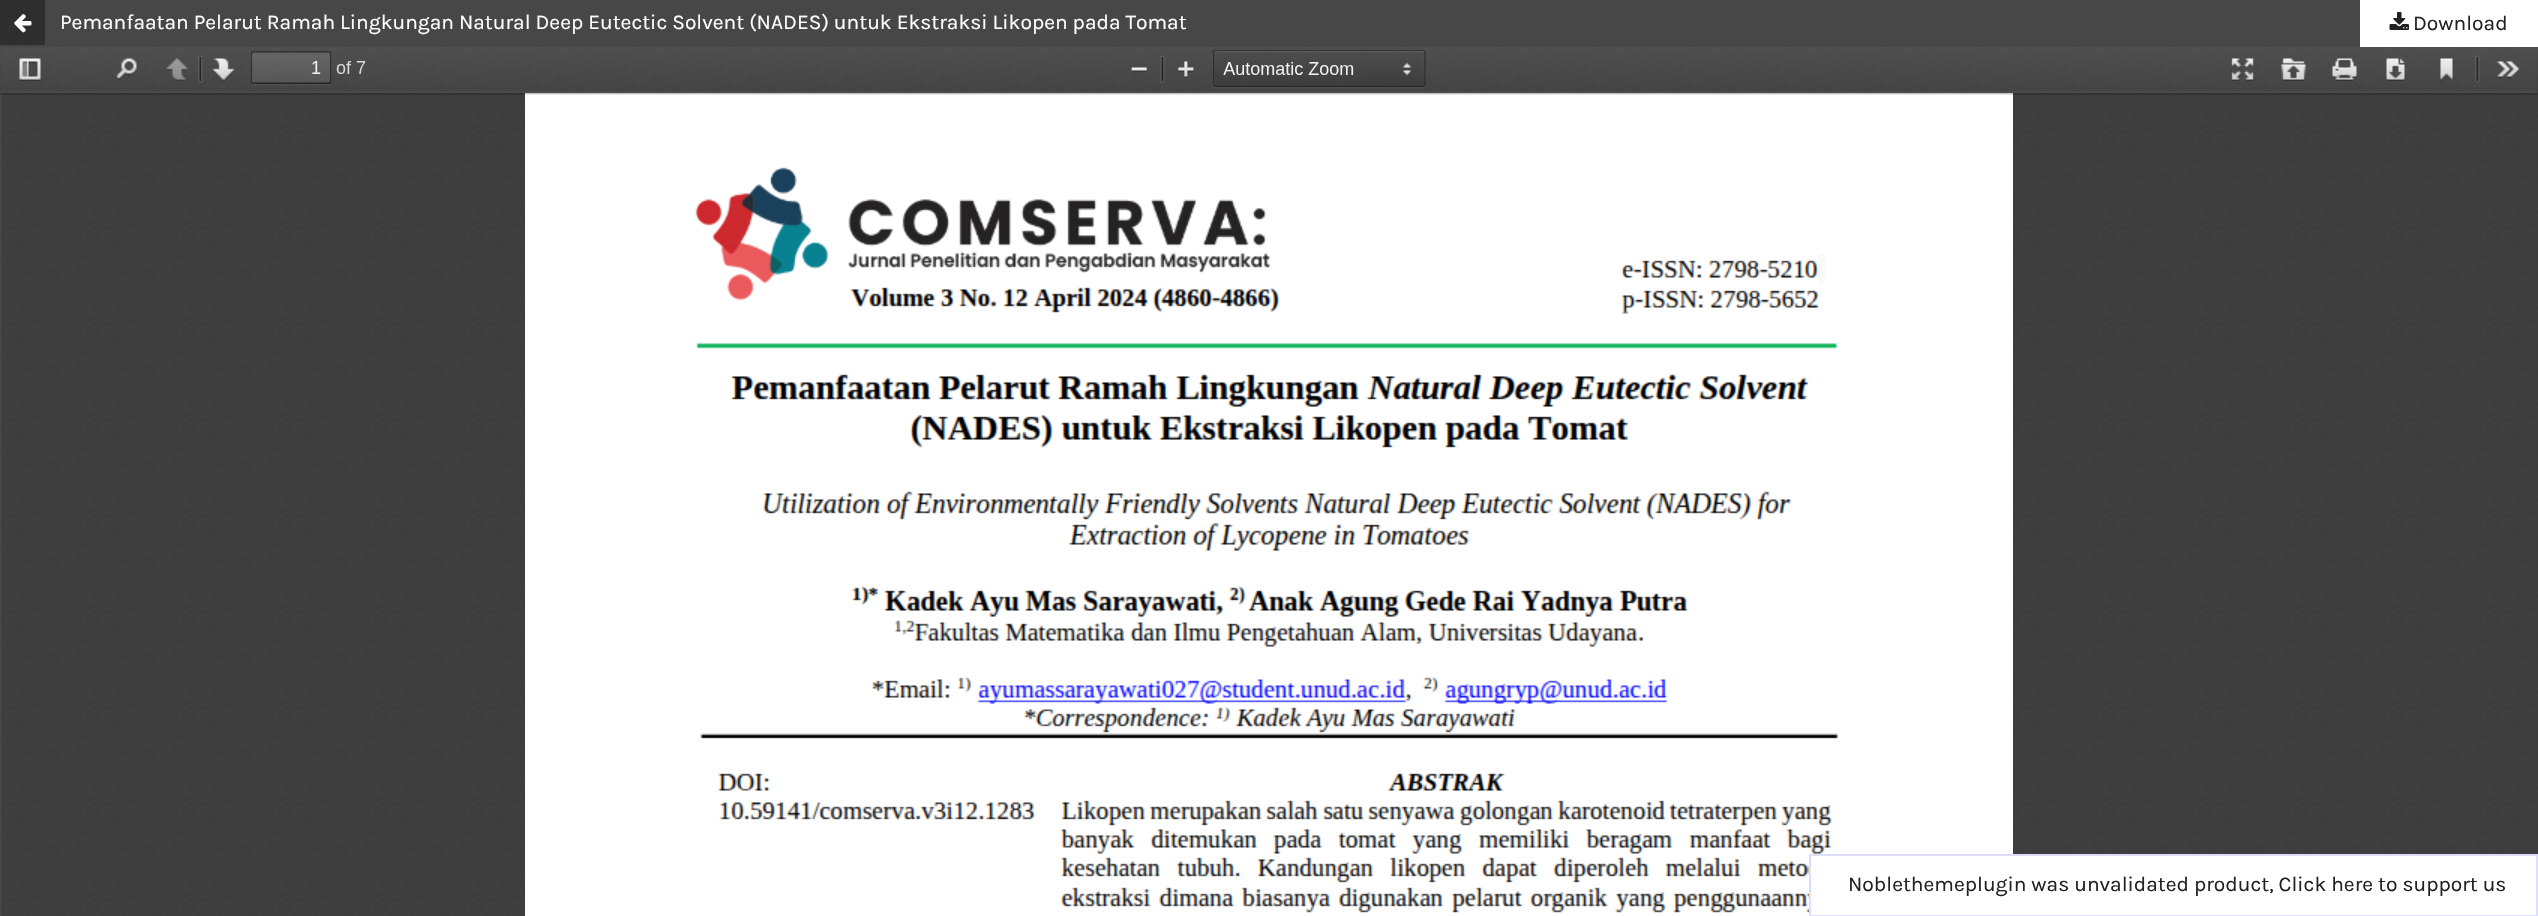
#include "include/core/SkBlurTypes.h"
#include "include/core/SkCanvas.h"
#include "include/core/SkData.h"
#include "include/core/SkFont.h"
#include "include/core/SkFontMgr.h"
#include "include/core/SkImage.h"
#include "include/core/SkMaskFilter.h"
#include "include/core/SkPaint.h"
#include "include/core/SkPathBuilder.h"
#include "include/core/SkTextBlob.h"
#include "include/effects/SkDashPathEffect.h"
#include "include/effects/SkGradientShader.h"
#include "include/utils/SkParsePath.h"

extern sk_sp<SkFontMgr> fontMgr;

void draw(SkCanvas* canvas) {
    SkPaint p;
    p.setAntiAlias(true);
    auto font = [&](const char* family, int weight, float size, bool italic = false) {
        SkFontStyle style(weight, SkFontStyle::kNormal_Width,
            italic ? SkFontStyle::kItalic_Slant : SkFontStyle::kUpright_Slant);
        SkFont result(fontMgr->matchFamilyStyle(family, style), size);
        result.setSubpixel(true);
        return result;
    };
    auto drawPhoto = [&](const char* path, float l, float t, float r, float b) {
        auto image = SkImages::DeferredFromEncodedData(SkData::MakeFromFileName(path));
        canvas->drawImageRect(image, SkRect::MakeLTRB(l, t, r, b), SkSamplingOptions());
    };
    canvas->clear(0xFFFFFFFF);
    p.setColor(0xFF474747);
    canvas->drawRect(SkRect::MakeLTRB(45, 0, 2360, 45), p);
    p.setColor(0xFF2E2E2E);
    canvas->drawRect(SkRect::MakeLTRB(0, 0, 45, 45), p);
    drawPhoto("media/1.png", 14, 14, 32, 33);
    auto font1 = font("Karla", 400, 21);
    p.setColor(0xFFFFFFFF);
    canvas->drawString("Pemanfaatan Pelarut Ramah Lingkungan Natural Deep Eutectic Solvent (NADES) untuk Ekstraksi Likopen pada Tomat", 60, 29, font1, p);
    drawPhoto("media/3.png", 0, 45, 2538, 916);
    canvas->drawRect(SkRect::MakeLTRB(2360, 45, 2538, 47), p);
    drawPhoto("media/2.png", 2389, 12, 2409, 30);
    p.setColor(0xFF212121);
    canvas->drawString("Download", 2413, 30, font1, p);
    p.setColor(0xFFFFFFFF);
    canvas->drawRect(SkRect::MakeLTRB(1810, 855, 2537, 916), p);
    p.setStyle(SkPaint::kStroke_Style);
    p.setStrokeWidth(2);
    p.setColor(0xFFDFDDFD);
    canvas->drawRect(SkRect::MakeLTRB(1810, 855, 2537, 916), p);
    p.setStyle(SkPaint::kFill_Style);
    p.setColor(0xFF212121);
    canvas->drawString("Noblethemeplugin was unvalidated product, Click here to support us", 1848, 891, font1, p);
}
